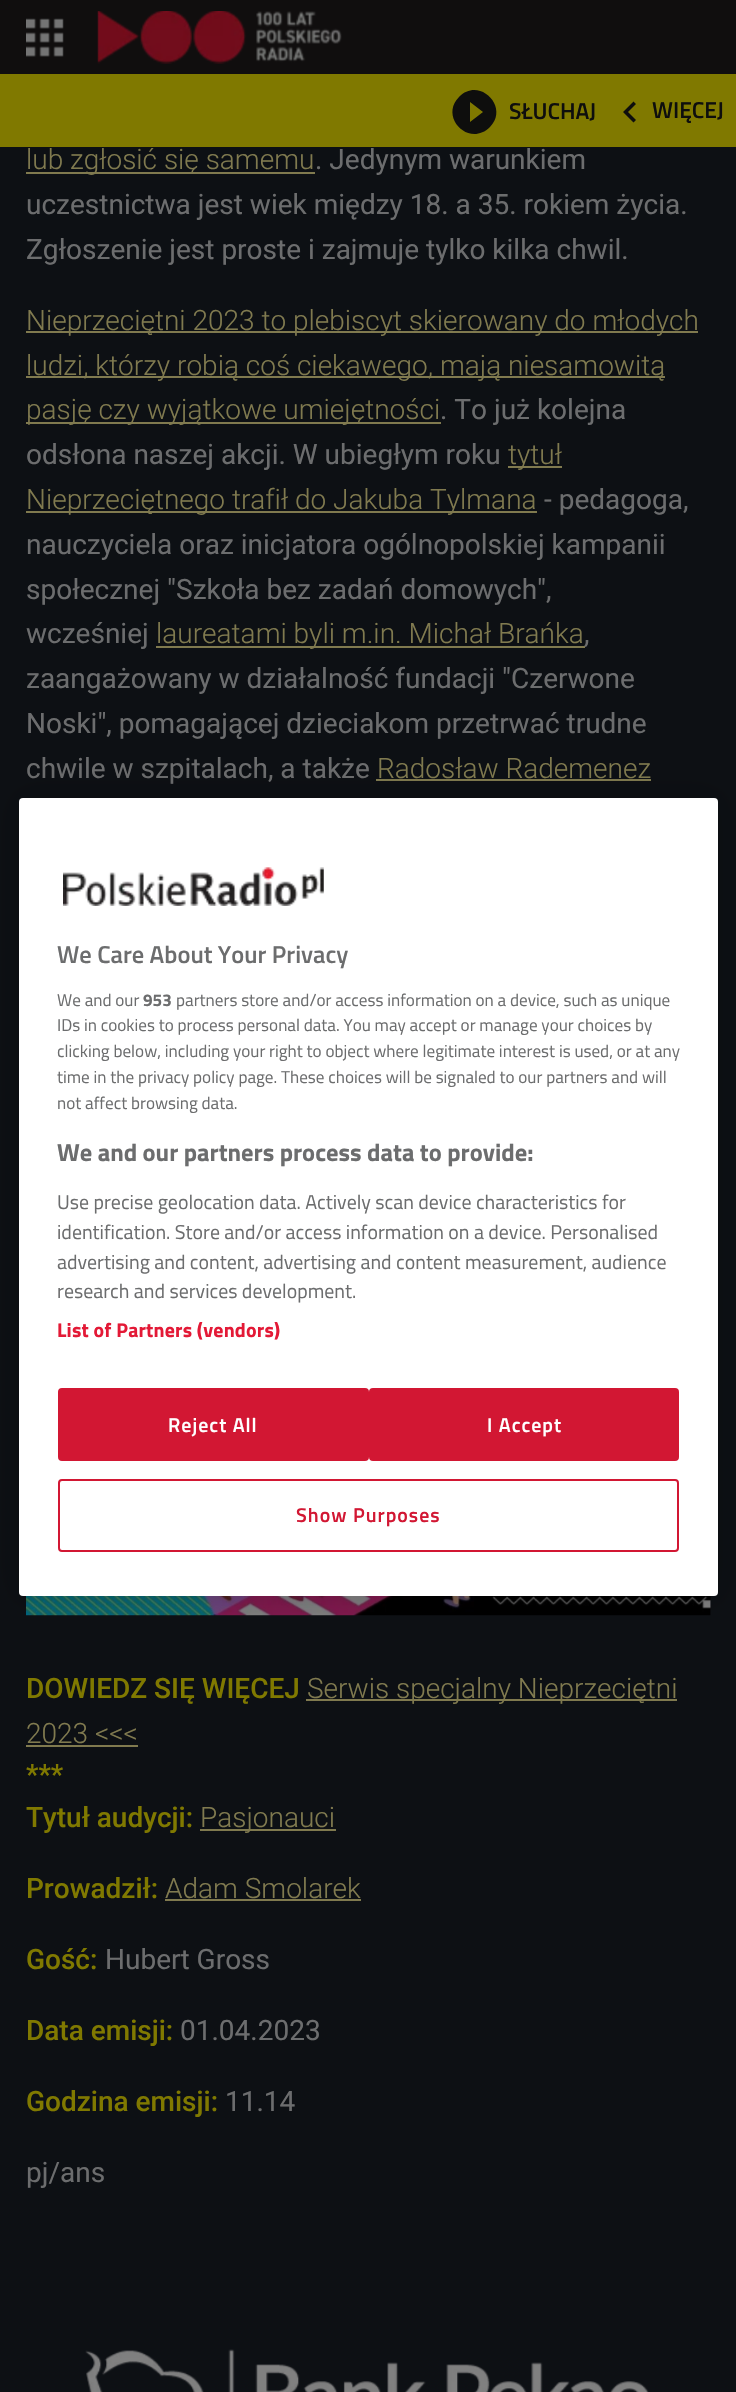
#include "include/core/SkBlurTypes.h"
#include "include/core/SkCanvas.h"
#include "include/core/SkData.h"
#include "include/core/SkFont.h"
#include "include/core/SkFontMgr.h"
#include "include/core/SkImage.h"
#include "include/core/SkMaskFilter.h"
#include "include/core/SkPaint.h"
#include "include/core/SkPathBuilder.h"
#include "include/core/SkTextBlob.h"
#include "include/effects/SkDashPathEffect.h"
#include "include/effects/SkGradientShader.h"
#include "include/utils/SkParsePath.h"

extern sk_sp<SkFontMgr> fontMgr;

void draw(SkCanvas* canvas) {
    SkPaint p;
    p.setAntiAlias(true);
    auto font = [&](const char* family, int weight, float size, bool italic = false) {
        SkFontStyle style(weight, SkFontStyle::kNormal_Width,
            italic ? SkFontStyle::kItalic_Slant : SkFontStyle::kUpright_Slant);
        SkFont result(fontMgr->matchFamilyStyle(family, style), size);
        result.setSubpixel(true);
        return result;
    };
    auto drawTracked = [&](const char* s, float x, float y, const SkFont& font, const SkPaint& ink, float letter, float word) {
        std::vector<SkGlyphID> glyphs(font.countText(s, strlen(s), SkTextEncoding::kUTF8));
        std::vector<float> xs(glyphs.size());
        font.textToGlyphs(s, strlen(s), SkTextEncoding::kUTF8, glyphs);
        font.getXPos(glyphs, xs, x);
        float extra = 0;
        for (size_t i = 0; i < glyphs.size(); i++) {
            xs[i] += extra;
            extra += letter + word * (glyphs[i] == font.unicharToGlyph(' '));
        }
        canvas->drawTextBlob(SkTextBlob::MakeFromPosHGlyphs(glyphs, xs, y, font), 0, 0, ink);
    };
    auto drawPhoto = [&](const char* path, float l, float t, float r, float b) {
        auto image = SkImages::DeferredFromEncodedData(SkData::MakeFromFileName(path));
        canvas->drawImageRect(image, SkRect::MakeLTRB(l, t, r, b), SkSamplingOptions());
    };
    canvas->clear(0xFF0D1014);
    p.setColor(0xFF100E0E);
    canvas->drawRect(SkRect::MakeLTRB(0, 0, 736, 74), p);
    drawPhoto("media/1.png", 26, 18, 64, 57);
    drawPhoto("media/2.png", 97, 11, 342, 64);
    p.setColor(0xFF807900);
    canvas->drawRect(SkRect::MakeLTRB(0, 74, 736, 147), p);
    p.setColor(0xFF0E0E0D);
    canvas->drawPath(SkPathBuilder().moveTo(470, 122).lineTo(483, 112).lineTo(470, 102).close().moveTo(459, 97).cubicTo(479, 76, 510, 107, 490, 127).cubicTo(469, 148, 439, 117, 459, 97).close().detach(), p);
    auto font1 = font("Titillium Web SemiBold", 600, 23);
    canvas->drawString("SŁUCHAJ", 509, 119, font1, p);
    canvas->drawPath(SkPathBuilder().moveTo(636, 120).lineTo(633.5f, 122.5f).lineTo(623, 112).lineTo(633.5f, 101.5f).lineTo(636, 104).lineTo(628, 112).close().detach(), p);
    canvas->drawString("WIĘCEJ", 652, 118, font1, p);
    p.setColor(0xFF807A4F);
    canvas->drawRect(SkRect::MakeLTRB(26, 172, 315, 174), p);
    auto font2 = font("Roboto", 300, 28);
    canvas->drawString("lub zgłosić się samemu", 26, 169, font2, p);
    auto font3 = font("Roboto", 400, 28);
    p.setColor(0xFF6C6D6E);
    {
        const struct { const char* s; float x, y; } items[] = {
            {". Jedynym warunkiem", 315, 169},
            {"uczestnictwa jest wiek między 18. a 35. rokiem życia.", 26, 214},
            {"Zgłoszenie jest proste i zajmuje tylko kilka chwil.", 26, 259},
        };
        for (auto [s, x, y] : items) {
            canvas->drawString(s, x, y, font3, p);
        }
    }
    p.setColor(0xFF807A4F);
    canvas->drawRect(SkRect::MakeLTRB(26, 331, 698, 333), p);
    canvas->drawString("Nieprzeciętni 2023 to plebiscyt skierowany do młodych", 26, 330, font2, p);
    canvas->drawRect(SkRect::MakeLTRB(26, 376, 665, 378), p);
    canvas->drawString("ludzi, którzy robią coś ciekawego, mają niesamowitą", 26, 375, font2, p);
    canvas->drawRect(SkRect::MakeLTRB(26, 422, 441, 424), p);
    canvas->drawString("pasję czy wyjątkowe umiejętności", 26, 419, font2, p);
    p.setColor(0xFF6C6D6E);
    canvas->drawString(". To już kolejna", 440, 419, font3, p);
    canvas->drawString("odsłona naszej akcji. W ubiegłym roku", 26, 464, font3, p);
    p.setColor(0xFF807A4F);
    canvas->drawRect(SkRect::MakeLTRB(508, 466, 562, 468), p);
    canvas->drawString("tytuł", 508, 464, font2, p);
    canvas->drawRect(SkRect::MakeLTRB(26, 511, 537, 513), p);
    canvas->drawString("Nieprzeciętnego trafił do Jakuba Tylmana", 26, 509, font2, p);
    p.setColor(0xFF6C6D6E);
    {
        const struct { const char* s; float x, y; } items[] = {
            {"- pedagoga,", 544, 509},
            {"nauczyciela oraz inicjatora ogólnopolskiej kampanii", 26, 554},
            {"społecznej \"Szkoła bez zadań domowych\",", 26, 599},
            {"wcześniej", 26, 643},
        };
        for (auto [s, x, y] : items) {
            canvas->drawString(s, x, y, font3, p);
        }
    }
    p.setColor(0xFF807A4F);
    canvas->drawRect(SkRect::MakeLTRB(156, 646, 585, 648), p);
    canvas->drawString("laureatami byli m.in. Michał Brańka", 156, 643, font2, p);
    p.setColor(0xFF6C6D6E);
    {
        const struct { const char* s; float x, y; } items[] = {
            {",", 584, 643},
            {"zaangażowany w działalność fundacji \"Czerwone", 26, 688},
            {"Noski\", pomagającej dzieciakom przetrwać trudne", 26, 733},
            {"chwile w szpitalach, a także", 26, 778},
        };
        for (auto [s, x, y] : items) {
            canvas->drawString(s, x, y, font3, p);
        }
    }
    p.setColor(0xFF807A4F);
    canvas->drawString("Radosław Rademenez", 377, 778, font2, p);
    canvas->drawRect(SkRect::MakeLTRB(376, 779, 651, 781), p);
    drawPhoto("media/3.png", 26, 1596, 711, 1616);
    auto font4 = font("Roboto", 500, 28);
    p.setColor(0xFF807900);
    canvas->drawString("DOWIEDZ SIĘ WIĘCEJ", 26, 1698, font4, p);
    p.setColor(0xFF807A4F);
    canvas->drawRect(SkRect::MakeLTRB(306, 1699, 677, 1701), p);
    canvas->drawString("Serwis specjalny Nieprzeciętni", 307, 1698, font2, p);
    canvas->drawString("2023 <<<", 26, 1743, font2, p);
    canvas->drawRect(SkRect::MakeLTRB(26, 1745, 138, 1747), p);
    p.setColor(0xFF807900);
    canvas->drawString("***", 26, 1784, font4, p);
    canvas->drawString("Tytuł audycji:", 26, 1827, font4, p);
    p.setColor(0xFF807A4F);
    canvas->drawRect(SkRect::MakeLTRB(200, 1829, 336, 1831), p);
    canvas->drawString("Pasjonauci", 200, 1827, font2, p);
    p.setColor(0xFF807900);
    canvas->drawString("Prowadził:", 26, 1898, font4, p);
    p.setColor(0xFF807A4F);
    canvas->drawString("Adam Smolarek", 165, 1898, font2, p);
    canvas->drawRect(SkRect::MakeLTRB(165, 1899, 361, 1901), p);
    p.setColor(0xFF807900);
    canvas->drawString("Gość:", 26, 1969, font4, p);
    p.setColor(0xFF6C6D6E);
    canvas->drawString("Hubert Gross", 105, 1969, font3, p);
    p.setColor(0xFF807900);
    canvas->drawString("Data emisji:", 26, 2040, font4, p);
    p.setColor(0xFF6C6D6E);
    canvas->drawString("01.04.2023", 180, 2040, font3, p);
    p.setColor(0xFF807900);
    canvas->drawString("Godzina emisji:", 26, 2111, font4, p);
    p.setColor(0xFF6C6D6E);
    canvas->drawString("11.14", 225, 2111, font3, p);
    canvas->drawString("pj/ans", 26, 2182, font3, p);
    drawPhoto("media/4.png", 85, 2349, 649, 2392);
    p.setColor(0x33000000);
    p.setMaskFilter(SkMaskFilter::MakeBlur(kNormal_SkBlurStyle, 16));
    canvas->drawRoundRect(SkRect::MakeLTRB(19, 798, 718, 1596), 4, 4, p);
    p.setMaskFilter(nullptr);
    p.setColor(0xFFFFFFFF);
    canvas->drawRoundRect(SkRect::MakeLTRB(19, 798, 718, 1596), 4, 4, p);
    drawPhoto("media/5.png", 63, 867, 324, 906);
    auto font5 = font("Titillium Web SemiBold", 600, 24.5f);
    p.setColor(0xFF6C6D6E);
    canvas->drawString("We Care About Your Privacy", 57, 963, font5, p);
    auto font6 = font("Titillium Web", 400, 17.15f);
    canvas->drawString("We and our", 57, 1006, font6, p);
    auto font7 = font("Titillium Web", 700, 17.15f);
    canvas->drawString("953", 143, 1006, font7, p);
    {
        const struct { const char* s; float x, y; } items[] = {
            {"partners store and/or access information on a device, such as unique", 176, 1006},
            {"IDs in cookies to process personal data. You may accept or manage your choices by", 57, 1031},
            {"clicking below, including your right to object where legitimate interest is used, or at any", 57, 1057},
            {"time in the privacy policy page. These choices will be signaled to our partners and will", 57, 1083},
            {"not affect browsing data.", 57, 1109},
        };
        for (auto [s, x, y] : items) {
            canvas->drawString(s, x, y, font6, p);
        }
    }
    auto font8 = font("Titillium Web", 700, 24.5f);
    canvas->drawString("We and our partners process data to provide:", 57, 1161, font8, p);
    auto font9 = font("Titillium Web", 400, 19.9f);
    {
        const struct { const char* s; float x, y; } items[] = {
            {"Use precise geolocation data. Actively scan device characteristics for", 57, 1209},
            {"identification. Store and/or access information on a device. Personalised", 57, 1239},
            {"advertising and content, advertising and content measurement, audience", 57, 1269},
            {"research and services development.", 57, 1298},
        };
        for (auto [s, x, y] : items) {
            canvas->drawString(s, x, y, font9, p);
        }
    }
    auto font10 = font("Titillium Web", 700, 19.9f);
    p.setColor(0xFFE31936);
    drawTracked("List of Partners (vendors)", 57, 1337, font10, p, 0.2f, 0);
    p.setColor(0xFFD21733);
    canvas->drawRoundRect(SkRect::MakeLTRB(59, 1389, 368, 1460), 3, 3, p);
    p.setStyle(SkPaint::kStroke_Style);
    p.setStrokeWidth(2);
    canvas->drawRoundRect(SkRect::MakeLTRB(59, 1389, 368, 1460), 3, 3, p);
    auto font11 = font("Titillium Web SemiBold", 600, 19.9f);
    p.setStyle(SkPaint::kFill_Style);
    p.setColor(0xFFFFFFFF);
    drawTracked("Reject All", 168, 1432, font11, p, 1, 0);
    p.setColor(0xFFD21733);
    canvas->drawRoundRect(SkRect::MakeLTRB(370, 1389, 678, 1460), 3, 3, p);
    p.setStyle(SkPaint::kStroke_Style);
    canvas->drawRoundRect(SkRect::MakeLTRB(370, 1389, 678, 1460), 3, 3, p);
    p.setStyle(SkPaint::kFill_Style);
    p.setColor(0xFFFFFFFF);
    drawTracked("I Accept", 487, 1432, font11, p, 1, 0);
    p.setStyle(SkPaint::kStroke_Style);
    p.setColor(0xFFD21733);
    canvas->drawRoundRect(SkRect::MakeLTRB(59, 1480, 678, 1551), 3, 3, p);
    p.setStyle(SkPaint::kFill_Style);
    drawTracked("Show Purposes", 296, 1522, font11, p, 1, 0);
}
